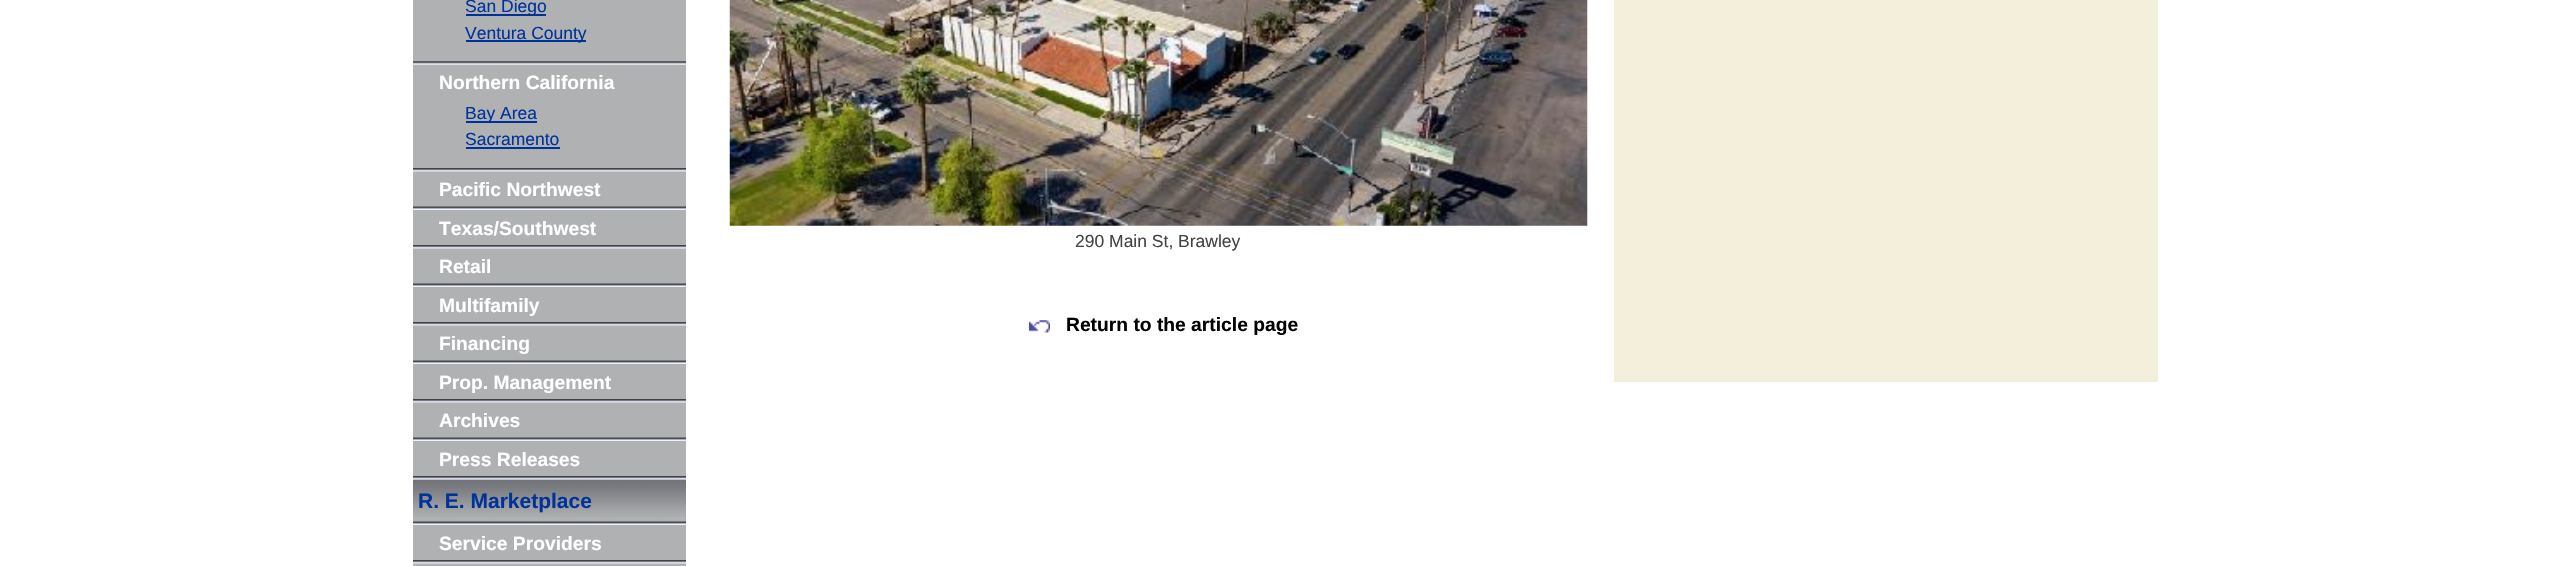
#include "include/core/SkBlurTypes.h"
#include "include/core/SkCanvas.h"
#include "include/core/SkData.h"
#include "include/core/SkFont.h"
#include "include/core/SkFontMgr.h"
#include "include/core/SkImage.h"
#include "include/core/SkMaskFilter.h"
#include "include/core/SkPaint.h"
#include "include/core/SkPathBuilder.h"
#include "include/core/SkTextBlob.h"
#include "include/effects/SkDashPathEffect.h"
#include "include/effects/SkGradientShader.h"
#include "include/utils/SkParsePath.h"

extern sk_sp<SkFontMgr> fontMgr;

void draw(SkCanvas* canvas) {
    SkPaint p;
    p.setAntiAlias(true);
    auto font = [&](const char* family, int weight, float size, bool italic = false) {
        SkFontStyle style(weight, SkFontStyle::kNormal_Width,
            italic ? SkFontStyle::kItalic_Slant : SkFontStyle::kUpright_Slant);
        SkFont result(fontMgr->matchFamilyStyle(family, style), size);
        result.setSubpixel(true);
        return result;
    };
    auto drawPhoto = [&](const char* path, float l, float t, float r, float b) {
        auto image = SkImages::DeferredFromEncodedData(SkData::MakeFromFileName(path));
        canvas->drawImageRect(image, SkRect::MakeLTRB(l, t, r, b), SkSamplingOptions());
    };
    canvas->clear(0xFFFFFFFF);
    p.setColor(0xFFB0B1B3);
    canvas->drawRect(SkRect::MakeLTRB(413, 0, 686, 566), p);
    p.setColor(0xFF003399);
    canvas->drawRect(SkRect::MakeLTRB(466, 14, 546, 16), p);
    auto font1 = font("Liberation Sans", 400, 17.5f);
    canvas->drawString("San Diego", 465, 12, font1, p);
    canvas->drawRect(SkRect::MakeLTRB(466, 40, 586, 42), p);
    canvas->drawString("Ventura County", 465, 39, font1, p);
    drawPhoto("media/1.png", 413, 61, 686, 65);
    auto font2 = font("Liberation Sans", 700, 19.25f);
    p.setColor(0xFFFFFFFF);
    canvas->drawString("Northern California", 439, 89, font2, p);
    p.setColor(0xFF003399);
    canvas->drawRect(SkRect::MakeLTRB(466, 121, 537, 123), p);
    canvas->drawString("Bay Area", 465, 119, font1, p);
    canvas->drawString("Sacramento", 465, 145, font1, p);
    canvas->drawRect(SkRect::MakeLTRB(466, 147, 560, 149), p);
    drawPhoto("media/2.png", 413, 168, 686, 172);
    p.setColor(0xFFFFFFFF);
    canvas->drawString("Pacific Northwest", 439, 196, font2, p);
    drawPhoto("media/3.png", 413, 206, 686, 210);
    canvas->drawString("Texas/Southwest", 439, 235, font2, p);
    drawPhoto("media/2.png", 413, 245, 686, 249);
    canvas->drawString("Retail", 439, 273, font2, p);
    drawPhoto("media/3.png", 413, 283, 686, 287);
    canvas->drawString("Multifamily", 439, 312, font2, p);
    drawPhoto("media/2.png", 413, 322, 686, 326);
    canvas->drawString("Financing", 439, 350, font2, p);
    drawPhoto("media/3.png", 413, 360, 686, 364);
    canvas->drawString("Prop. Management", 439, 389, font2, p);
    drawPhoto("media/2.png", 413, 399, 686, 403);
    canvas->drawString("Archives", 439, 427, font2, p);
    drawPhoto("media/3.png", 413, 437, 686, 441);
    canvas->drawString("Press Releases", 439, 466, font2, p);
    drawPhoto("media/5.png", 413, 479, 686, 517);
    drawPhoto("media/4.png", 413, 476, 686, 480);
    auto font3 = font("Liberation Sans", 700, 21);
    p.setColor(0xFF003399);
    canvas->drawString("R. E. Marketplace", 418, 508, font3, p);
    drawPhoto("media/3.png", 413, 521, 686, 525);
    p.setColor(0xFFFFFFFF);
    canvas->drawString("Service Providers", 439, 550, font2, p);
    drawPhoto("media/2.png", 413, 560, 686, 564);
    drawPhoto("media/6.png", 729, 0, 1588, 226);
    p.setColor(0xFF444444);
    canvas->drawString("290 Main St, Brawley", 1075, 247, font1, p);
    drawPhoto("media/7.png", 1029, 320, 1050, 333);
    p.setColor(0xFF000000);
    canvas->drawString("Return to the article page", 1066, 331, font2, p);
    p.setColor(0xFFF4EFDA);
    canvas->drawRect(SkRect::MakeLTRB(1614, 0, 2158, 382), p);
}
